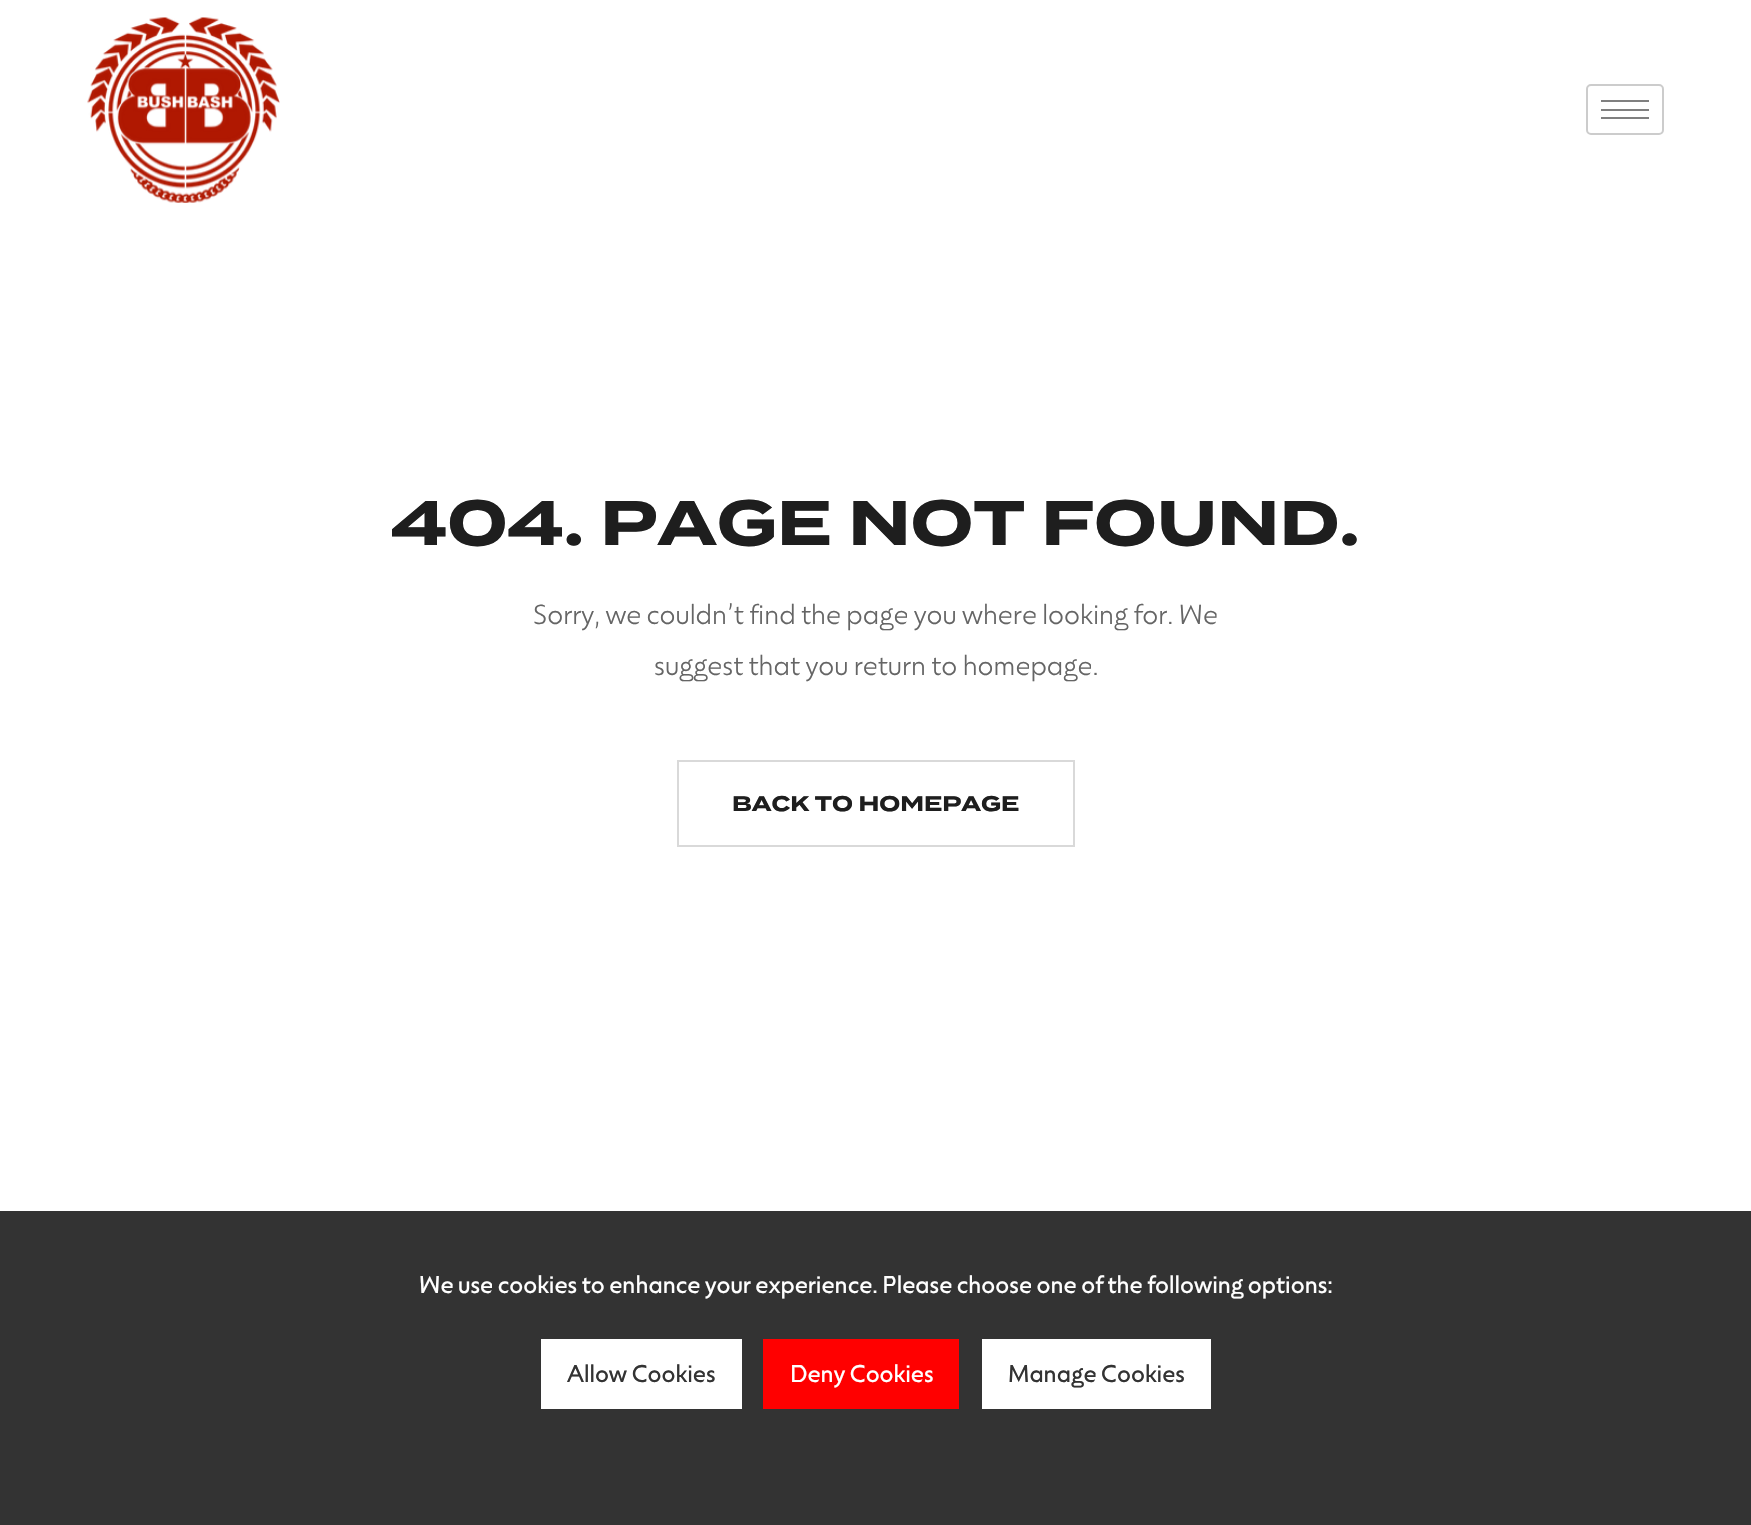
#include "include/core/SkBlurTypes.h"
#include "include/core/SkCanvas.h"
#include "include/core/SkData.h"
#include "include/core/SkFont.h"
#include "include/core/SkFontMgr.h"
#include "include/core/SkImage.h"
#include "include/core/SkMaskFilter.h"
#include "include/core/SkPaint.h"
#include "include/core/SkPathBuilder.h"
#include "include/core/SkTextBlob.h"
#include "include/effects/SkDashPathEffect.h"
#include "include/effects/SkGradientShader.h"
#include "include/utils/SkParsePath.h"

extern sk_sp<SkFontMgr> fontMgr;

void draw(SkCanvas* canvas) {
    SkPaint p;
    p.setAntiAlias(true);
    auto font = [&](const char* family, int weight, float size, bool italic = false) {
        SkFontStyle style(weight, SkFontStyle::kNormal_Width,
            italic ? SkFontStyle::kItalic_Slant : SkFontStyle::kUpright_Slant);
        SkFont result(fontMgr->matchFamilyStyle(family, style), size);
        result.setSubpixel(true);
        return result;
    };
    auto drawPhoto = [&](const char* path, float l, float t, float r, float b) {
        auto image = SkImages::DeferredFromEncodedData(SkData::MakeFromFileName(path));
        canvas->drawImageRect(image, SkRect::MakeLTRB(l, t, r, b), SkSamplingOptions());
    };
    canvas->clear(0xFFFFFFFF);
    drawPhoto("media/1.png", 87, 17, 280, 203);
    p.setStyle(SkPaint::kStroke_Style);
    p.setStrokeWidth(2);
    p.setColor(0xFFCCCCCC);
    canvas->drawRoundRect(SkRect::MakeLTRB(1587, 85, 1663, 134), 4, 4, p);
    p.setStyle(SkPaint::kFill_Style);
    {
        const struct { float l, t, r, b; SkColor color; } items[] = {
            {1601, 100, 1649, 102, 0xFF808080},
            {1601, 109, 1649, 111, 0xFF808080},
            {1601, 117, 1649, 119, 0xFF808080},
        };
        for (auto [l, t, r, b, color] : items) {
            p.setColor(color);
            canvas->drawRect(SkRect::MakeLTRB(l, t, r, b), p);
        }
    }
    auto font1 = font("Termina", 700, 63);
    p.setColor(0xFF1E1E1E);
    canvas->drawString("404. PAGE NOT FOUND.", 391, 545, font1, p);
    auto font2 = font("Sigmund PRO", 200, 28);
    p.setColor(0xFF656565);
    canvas->drawString("Sorry, we couldn’t find the page you where looking for. We", 533, 624, font2, p);
    canvas->drawString("suggest that you return to homepage.", 654, 675, font2, p);
    p.setStyle(SkPaint::kStroke_Style);
    p.setColor(0xFFD9D9D9);
    canvas->drawRect(SkRect::MakeLTRB(678, 761, 1074, 846), p);
    auto font3 = font("Termina", 700, 21);
    p.setStyle(SkPaint::kFill_Style);
    p.setColor(0xFF1E1E1E);
    canvas->drawString("BACK TO HOMEPAGE", 732, 811, font3, p);
    p.setColor(0xFF333333);
    canvas->drawRect(SkRect::MakeLTRB(0, 1211, 1751, 1525), p);
    auto font4 = font("Sigmund PRO", 300, 24.5f);
    p.setColor(0xFFFFFFFF);
    canvas->drawString("We use cookies to enhance your experience. Please choose one of the following options:", 419, 1293, font4, p);
    canvas->drawRect(SkRect::MakeLTRB(541, 1339, 742, 1409), p);
    p.setColor(0xFF333333);
    canvas->drawString("Allow Cookies", 567, 1382, font4, p);
    p.setColor(0xFFFF0000);
    canvas->drawRect(SkRect::MakeLTRB(763, 1339, 959, 1409), p);
    p.setColor(0xFFFFFFFF);
    canvas->drawString("Deny Cookies", 790, 1382, font4, p);
    canvas->drawRect(SkRect::MakeLTRB(982, 1339, 1211, 1409), p);
    p.setColor(0xFF333333);
    canvas->drawString("Manage Cookies", 1008, 1382, font4, p);
}
